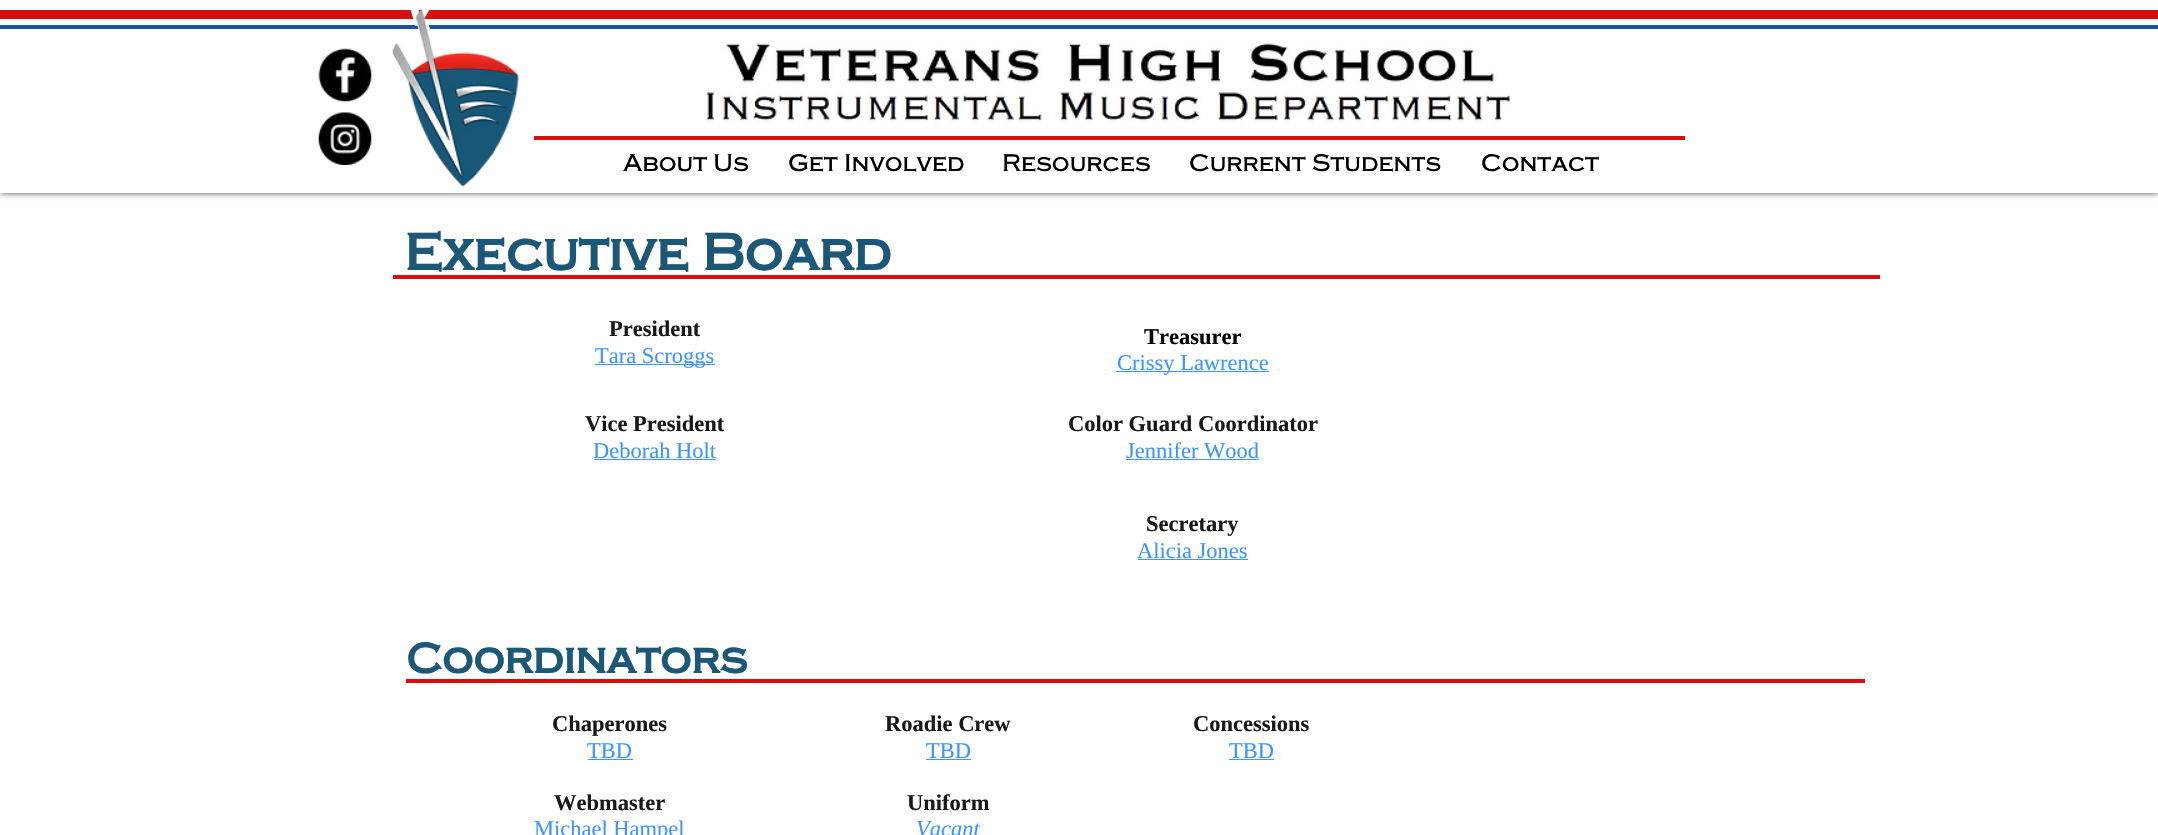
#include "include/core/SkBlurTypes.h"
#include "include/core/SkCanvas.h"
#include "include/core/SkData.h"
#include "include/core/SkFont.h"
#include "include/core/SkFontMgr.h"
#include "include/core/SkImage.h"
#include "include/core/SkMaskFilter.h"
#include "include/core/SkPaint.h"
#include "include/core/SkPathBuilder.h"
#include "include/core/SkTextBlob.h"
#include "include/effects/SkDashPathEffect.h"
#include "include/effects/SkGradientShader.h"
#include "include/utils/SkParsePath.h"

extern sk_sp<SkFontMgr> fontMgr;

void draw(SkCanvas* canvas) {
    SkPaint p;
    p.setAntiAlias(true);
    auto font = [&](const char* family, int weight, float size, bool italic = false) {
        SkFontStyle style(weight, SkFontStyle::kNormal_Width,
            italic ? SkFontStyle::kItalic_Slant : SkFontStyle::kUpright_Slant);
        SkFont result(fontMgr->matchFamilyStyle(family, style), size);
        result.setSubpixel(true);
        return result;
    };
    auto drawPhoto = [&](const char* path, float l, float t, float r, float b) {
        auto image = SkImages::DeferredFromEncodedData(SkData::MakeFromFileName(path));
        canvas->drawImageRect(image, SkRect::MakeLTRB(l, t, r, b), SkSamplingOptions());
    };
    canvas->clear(0xFFFFFFFF);
    p.setColor(0xB3000000);
    p.setMaskFilter(SkMaskFilter::MakeBlur(kNormal_SkBlurStyle, 3));
    canvas->drawRect(SkRect::MakeLTRB(0, 0, 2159, 193), p);
    p.setMaskFilter(nullptr);
    {
        const struct { float l, t, r, b; SkColor color; } items[] = {
            {0, 0, 2158, 193, 0xFFFFFFFF},
            {0, 10, 2158, 19, 0xFFD60F0F},
            {0, 25, 2158, 29, 0xFF1A549C},
        };
        for (auto [l, t, r, b, color] : items) {
            p.setColor(color);
            canvas->drawRect(SkRect::MakeLTRB(l, t, r, b), p);
        }
    }
    p.setColor(0xFFFFFFFF);
    canvas->drawPath(SkPathBuilder().moveTo(427.5f, 19).lineTo(430, 29.5f).lineTo(419, 32).lineTo(416.5f, 21).close().detach(), p);
    canvas->drawPath(SkPathBuilder().moveTo(429.5f, 9.5f).lineTo(419.5f, 27).lineTo(414, 23.5f).lineTo(424, 6.5f).close().detach(), p);
    canvas->drawPath(SkPathBuilder().moveTo(422.5f, 24).lineTo(415.5f, 26).lineTo(409, 4.5f).lineTo(416.5f, 2.5f).close().detach(), p);
    drawPhoto("media/1.png", 392, 9, 519, 187);
    drawPhoto("media/2.png", 318, 48, 372, 102);
    drawPhoto("media/3.png", 318, 112, 372, 165);
    drawPhoto("media/4.png", 706, 42, 1511, 123);
    p.setColor(0xFFD60F0F);
    canvas->drawRect(SkRect::MakeLTRB(534, 136, 1685, 140), p);
    auto font1 = font("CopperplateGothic", 500, 25);
    p.setColor(0xFF000000);
    {
        const struct { const char* s; float x, y; } items[] = {
            {"About Us", 623, 171},
            {"Get Involved", 788, 171},
            {"Resources", 1002, 171},
            {"Current Students", 1189, 171},
            {"Contact", 1481, 171},
        };
        for (auto [s, x, y] : items) {
            canvas->drawString(s, x, y, font1, p);
        }
    }
    auto font2 = font("CopperplateGothic", 700, 53.75f);
    p.setColor(0xFF1B5877);
    canvas->drawString("Executive Board", 404, 270, font2, p);
    p.setColor(0xFFD60F0F);
    canvas->drawRect(SkRect::MakeLTRB(393, 275, 1880, 279), p);
    auto font3 = font("Liberation Serif", 700, 22.5f);
    p.setColor(0xFF181818);
    canvas->drawString("President", 609, 336, font3, p);
    p.setColor(0xFF3C94FF);
    canvas->drawRect(SkRect::MakeLTRB(595, 364, 715, 365), p);
    auto font4 = font("Liberation Serif", 400, 22.5f);
    canvas->drawString("Tara Scroggs", 595, 363, font4, p);
    p.setColor(0xFF181818);
    canvas->drawString("Vice President", 585, 431, font3, p);
    p.setColor(0xFF3C94FF);
    canvas->drawString("Deborah Holt", 593, 458, font4, p);
    canvas->drawRect(SkRect::MakeLTRB(594, 459, 716, 460), p);
    p.setColor(0xFF000000);
    canvas->drawString("Treasurer", 1144, 344, font3, p);
    p.setColor(0xFF3C94FF);
    canvas->drawRect(SkRect::MakeLTRB(1116, 371, 1269, 372), p);
    canvas->drawString("Crissy Lawrence", 1117, 370, font4, p);
    p.setColor(0xFF181818);
    canvas->drawString("Color Guard Coordinator", 1068, 431, font3, p);
    p.setColor(0xFF3C94FF);
    canvas->drawString("Jennifer Wood", 1126, 458, font4, p);
    canvas->drawRect(SkRect::MakeLTRB(1126, 459, 1259, 460), p);
    p.setColor(0xFF181818);
    canvas->drawString("Secretary", 1146, 531, font3, p);
    p.setColor(0xFF3C94FF);
    canvas->drawString("Alicia Jones", 1137, 558, font4, p);
    canvas->drawRect(SkRect::MakeLTRB(1138, 559, 1248, 560), p);
    auto font5 = font("CopperplateGothic", 700, 43.75f);
    p.setColor(0xFF1B5877);
    canvas->drawString("Coordinators", 406, 673, font5, p);
    p.setColor(0xFFD60F0F);
    canvas->drawRect(SkRect::MakeLTRB(406, 679, 1865, 683), p);
    p.setColor(0xFF181818);
    canvas->drawString("Chaperones", 552, 731, font3, p);
    p.setColor(0xFF3C94FF);
    canvas->drawString("TBD", 587, 758, font4, p);
    canvas->drawRect(SkRect::MakeLTRB(588, 759, 633, 760), p);
    p.setColor(0xFF181818);
    canvas->drawString("Webmaster", 554, 810, font3, p);
    p.setColor(0xFF3C94FF);
    canvas->drawString("Michael Hampel", 534, 836, font4, p);
    p.setColor(0xFF181818);
    canvas->drawString("Roadie Crew", 885, 731, font3, p);
    p.setColor(0xFF3C94FF);
    canvas->drawString("TBD", 926, 758, font4, p);
    canvas->drawRect(SkRect::MakeLTRB(926, 759, 971, 760), p);
    p.setColor(0xFF181818);
    canvas->drawString("Uniform", 907, 810, font3, p);
    auto font6 = font("Liberation Serif", 400, 22.5f, true);
    p.setColor(0xFF3C94FF);
    canvas->drawString("Vacant", 916, 836, font6, p);
    p.setColor(0xFF181818);
    canvas->drawString("Concessions", 1193, 731, font3, p);
    p.setColor(0xFF3C94FF);
    canvas->drawString("TBD", 1229, 758, font4, p);
    canvas->drawRect(SkRect::MakeLTRB(1229, 759, 1274, 760), p);
}
